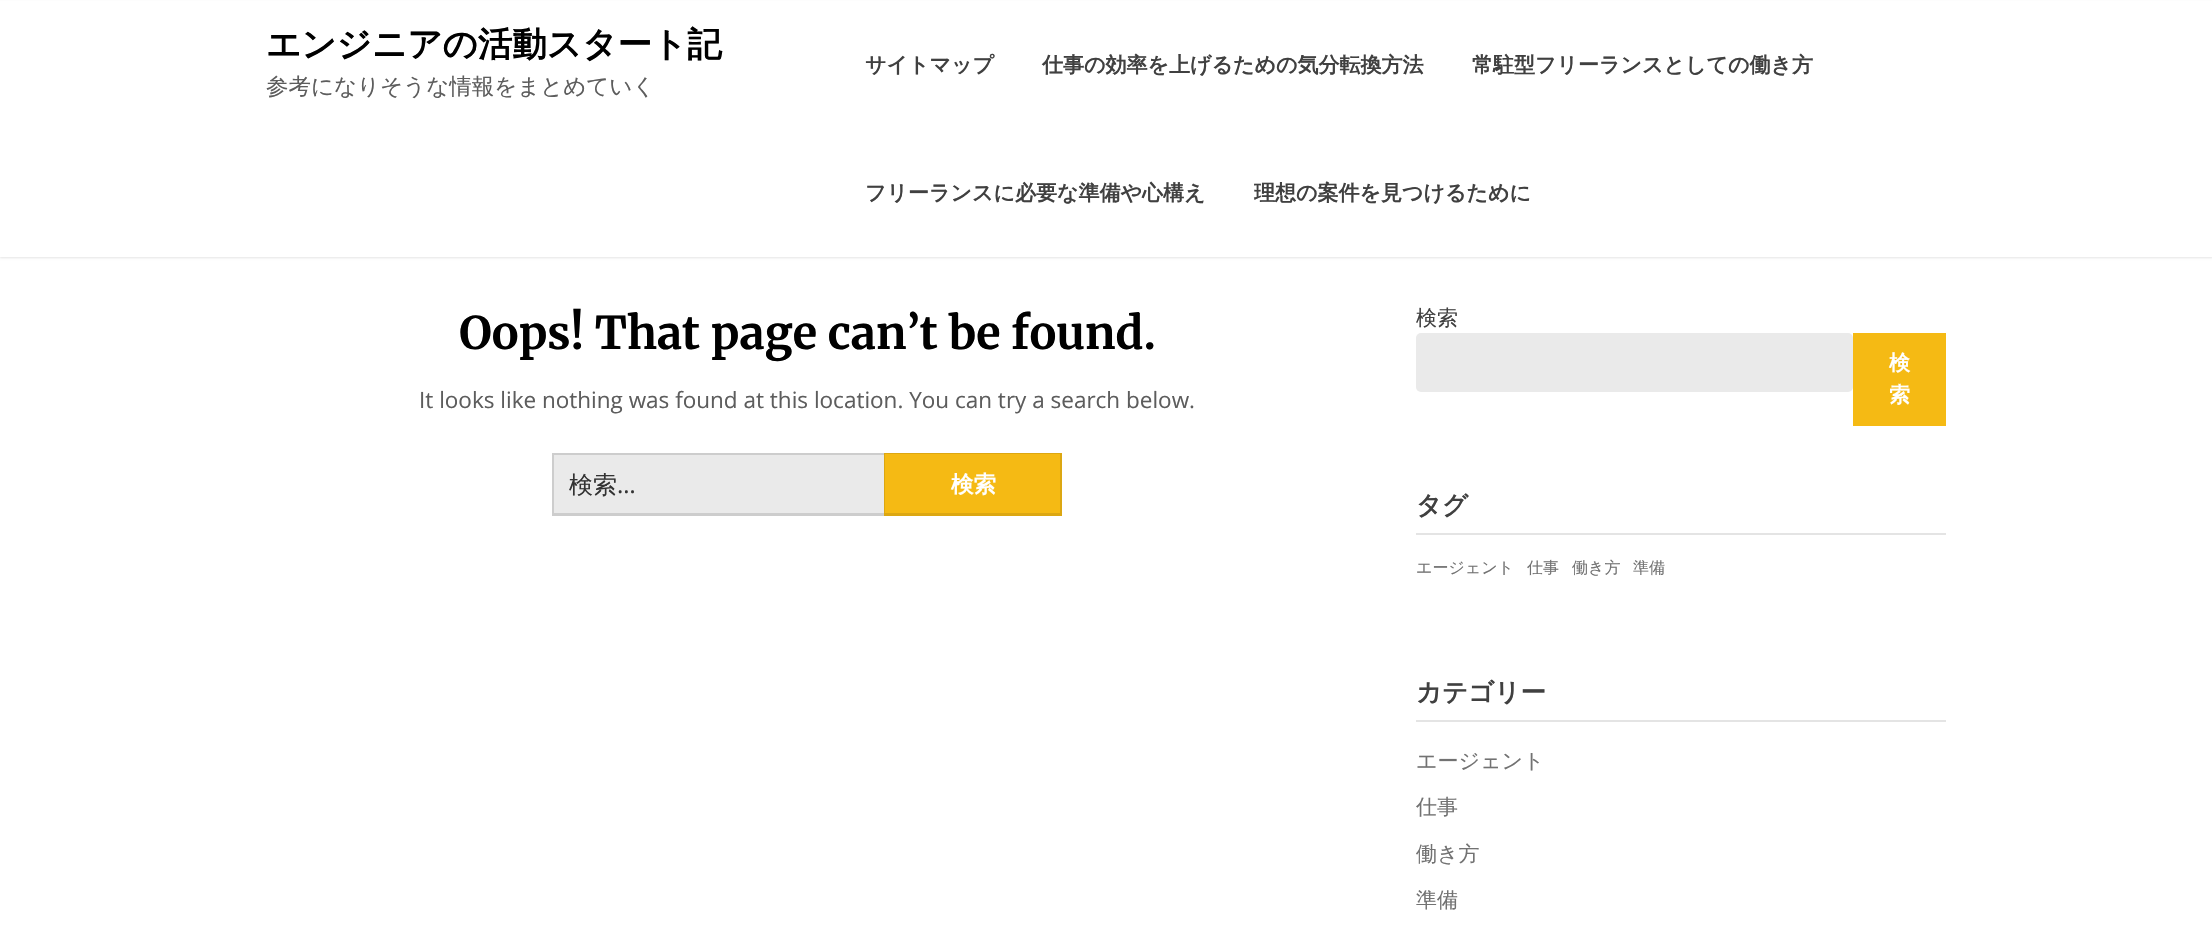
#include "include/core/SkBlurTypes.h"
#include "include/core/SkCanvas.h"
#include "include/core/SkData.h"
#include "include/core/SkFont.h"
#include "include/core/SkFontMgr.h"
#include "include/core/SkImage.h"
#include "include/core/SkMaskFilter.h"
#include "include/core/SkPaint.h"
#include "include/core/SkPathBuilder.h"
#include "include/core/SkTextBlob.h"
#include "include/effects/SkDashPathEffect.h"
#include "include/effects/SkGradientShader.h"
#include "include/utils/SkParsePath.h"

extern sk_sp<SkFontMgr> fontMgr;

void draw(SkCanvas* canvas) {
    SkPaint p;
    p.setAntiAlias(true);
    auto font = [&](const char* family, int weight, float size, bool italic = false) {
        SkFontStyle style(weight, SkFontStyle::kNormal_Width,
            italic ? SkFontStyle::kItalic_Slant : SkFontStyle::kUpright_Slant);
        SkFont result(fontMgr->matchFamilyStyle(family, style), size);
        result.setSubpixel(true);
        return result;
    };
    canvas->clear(0xFFFFFFFF);
    p.setColor(0x1A000000);
    p.setMaskFilter(SkMaskFilter::MakeBlur(kNormal_SkBlurStyle, 1));
    canvas->drawRect(SkRect::MakeLTRB(0, 2, 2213, 258), p);
    p.setMaskFilter(nullptr);
    p.setColor(0xFFFFFFFF);
    canvas->drawRect(SkRect::MakeLTRB(0, 1, 2212, 257), p);
    auto font1 = font("WenQuanYi Zen Hei", 700, 34.5f);
    p.setColor(0xFF000000);
    canvas->drawString("エンジニアの活動スタート記", 266, 56, font1, p);
    auto font2 = font("WenQuanYi Zen Hei", 500, 22.5f);
    p.setColor(0xFF5D5D5D);
    canvas->drawString("参考になりそうな情報をまとめていく", 266, 94, font2, p);
    auto font3 = font("WenQuanYi Zen Hei", 700, 21);
    p.setColor(0xFF404040);
    {
        const struct { const char* s; float x, y; } items[] = {
            {"サイトマップ", 865, 72},
            {"仕事の効率を上げるための気分転換方法", 1042, 72},
            {"常駐型フリーランスとしての働き方", 1472, 72},
            {"フリーランスに必要な準備や心構え", 865, 200},
            {"理想の案件を見つけるために", 1254, 200},
        };
        for (auto [s, x, y] : items) {
            canvas->drawString(s, x, y, font3, p);
        }
    }
    auto font4 = font("Merriweather", 700, 45);
    p.setColor(0xFF000000);
    canvas->drawString("Oops! That page can’t be found.", 459, 349, font4, p);
    auto font5 = font("Open Sans", 400, 22.5f);
    p.setColor(0xFF5D5D5D);
    canvas->drawString("It looks like nothing was found at this location. You can try a search below.", 419, 408, font5, p);
    {
        const struct { float l, t, r, b; SkColor color; } items[] = {
            {554, 455, 884, 513, 0xFFEAEAEA},
            {552, 453, 884, 455, 0xFFCDCDCD},
            {552, 513, 884, 516, 0xFFCDCDCD},
            {552, 453, 554, 516, 0xFFCDCDCD},
        };
        for (auto [l, t, r, b, color] : items) {
            p.setColor(color);
            canvas->drawRect(SkRect::MakeLTRB(l, t, r, b), p);
        }
    }
    auto font6 = font("WenQuanYi Zen Hei", 500, 24);
    p.setColor(0xFF333333);
    canvas->drawString("検索", 569, 493, font6, p);
    auto font7 = font("Open Sans", 400, 24);
    canvas->drawString("…", 617, 493, font7, p);
    p.setColor(0xFFF5BA14);
    canvas->drawRect(SkRect::MakeLTRB(884, 453, 1062, 516), p);
    p.setColor(0xFFDDA712);
    canvas->drawPath(SkPathBuilder().moveTo(884, 453).lineTo(1062, 453).lineTo(1060, 454).lineTo(885, 454).close().detach(), p);
    p.setColor(0x1A000000);
    canvas->drawPath(SkPathBuilder().moveTo(1062, 453).lineTo(1062, 516).lineTo(1060, 513).lineTo(1060, 454).close().detach(), p);
    canvas->drawPath(SkPathBuilder().moveTo(1062, 516).lineTo(884, 516).lineTo(885, 513).lineTo(1060, 513).close().detach(), p);
    canvas->drawPath(SkPathBuilder().moveTo(884, 516).lineTo(884, 453).lineTo(885, 454).lineTo(885, 513).close().detach(), p);
    auto font8 = font("WenQuanYi Zen Hei", 700, 22.5f);
    p.setColor(0xFFFFFFFF);
    canvas->drawString("検索", 951, 492, font8, p);
    auto font9 = font("WenQuanYi Zen Hei", 500, 21);
    p.setColor(0xFF404040);
    canvas->drawString("検索", 1416, 325, font9, p);
    p.setColor(0xFFEAEAEA);
    canvas->drawRoundRect(SkRect::MakeLTRB(1416, 333, 1853, 392), 5, 5, p);
    p.setColor(0xFFF5BA14);
    canvas->drawRect(SkRect::MakeLTRB(1853, 333, 1946, 426), p);
    p.setColor(0xFFFFFFFF);
    canvas->drawString("検", 1889, 370, font3, p);
    canvas->drawString("索", 1889, 402, font3, p);
    p.setColor(0xFFE4E4E4);
    canvas->drawRect(SkRect::MakeLTRB(1416, 533, 1946, 535), p);
    auto font10 = font("WenQuanYi Zen Hei", 700, 25.5f);
    p.setColor(0xFF404040);
    canvas->drawString("タグ", 1416, 514, font10, p);
    auto font11 = font("WenQuanYi Zen Hei", 500, 16);
    p.setColor(0xFF727272);
    {
        const struct { const char* s; float x, y; } items[] = {
            {"エージェント", 1416, 573},
            {"仕事", 1527, 573},
            {"働き方", 1572, 573},
            {"準備", 1633, 573},
        };
        for (auto [s, x, y] : items) {
            canvas->drawString(s, x, y, font11, p);
        }
    }
    p.setColor(0xFFE4E4E4);
    canvas->drawRect(SkRect::MakeLTRB(1416, 720, 1946, 722), p);
    p.setColor(0xFF404040);
    canvas->drawString("カテゴリー", 1416, 701, font10, p);
    p.setColor(0xFF727272);
    {
        const struct { const char* s; float x, y; } items[] = {
            {"エージェント", 1416, 768},
            {"仕事", 1416, 814},
            {"働き方", 1416, 861},
            {"準備", 1416, 907},
        };
        for (auto [s, x, y] : items) {
            canvas->drawString(s, x, y, font9, p);
        }
    }
}
